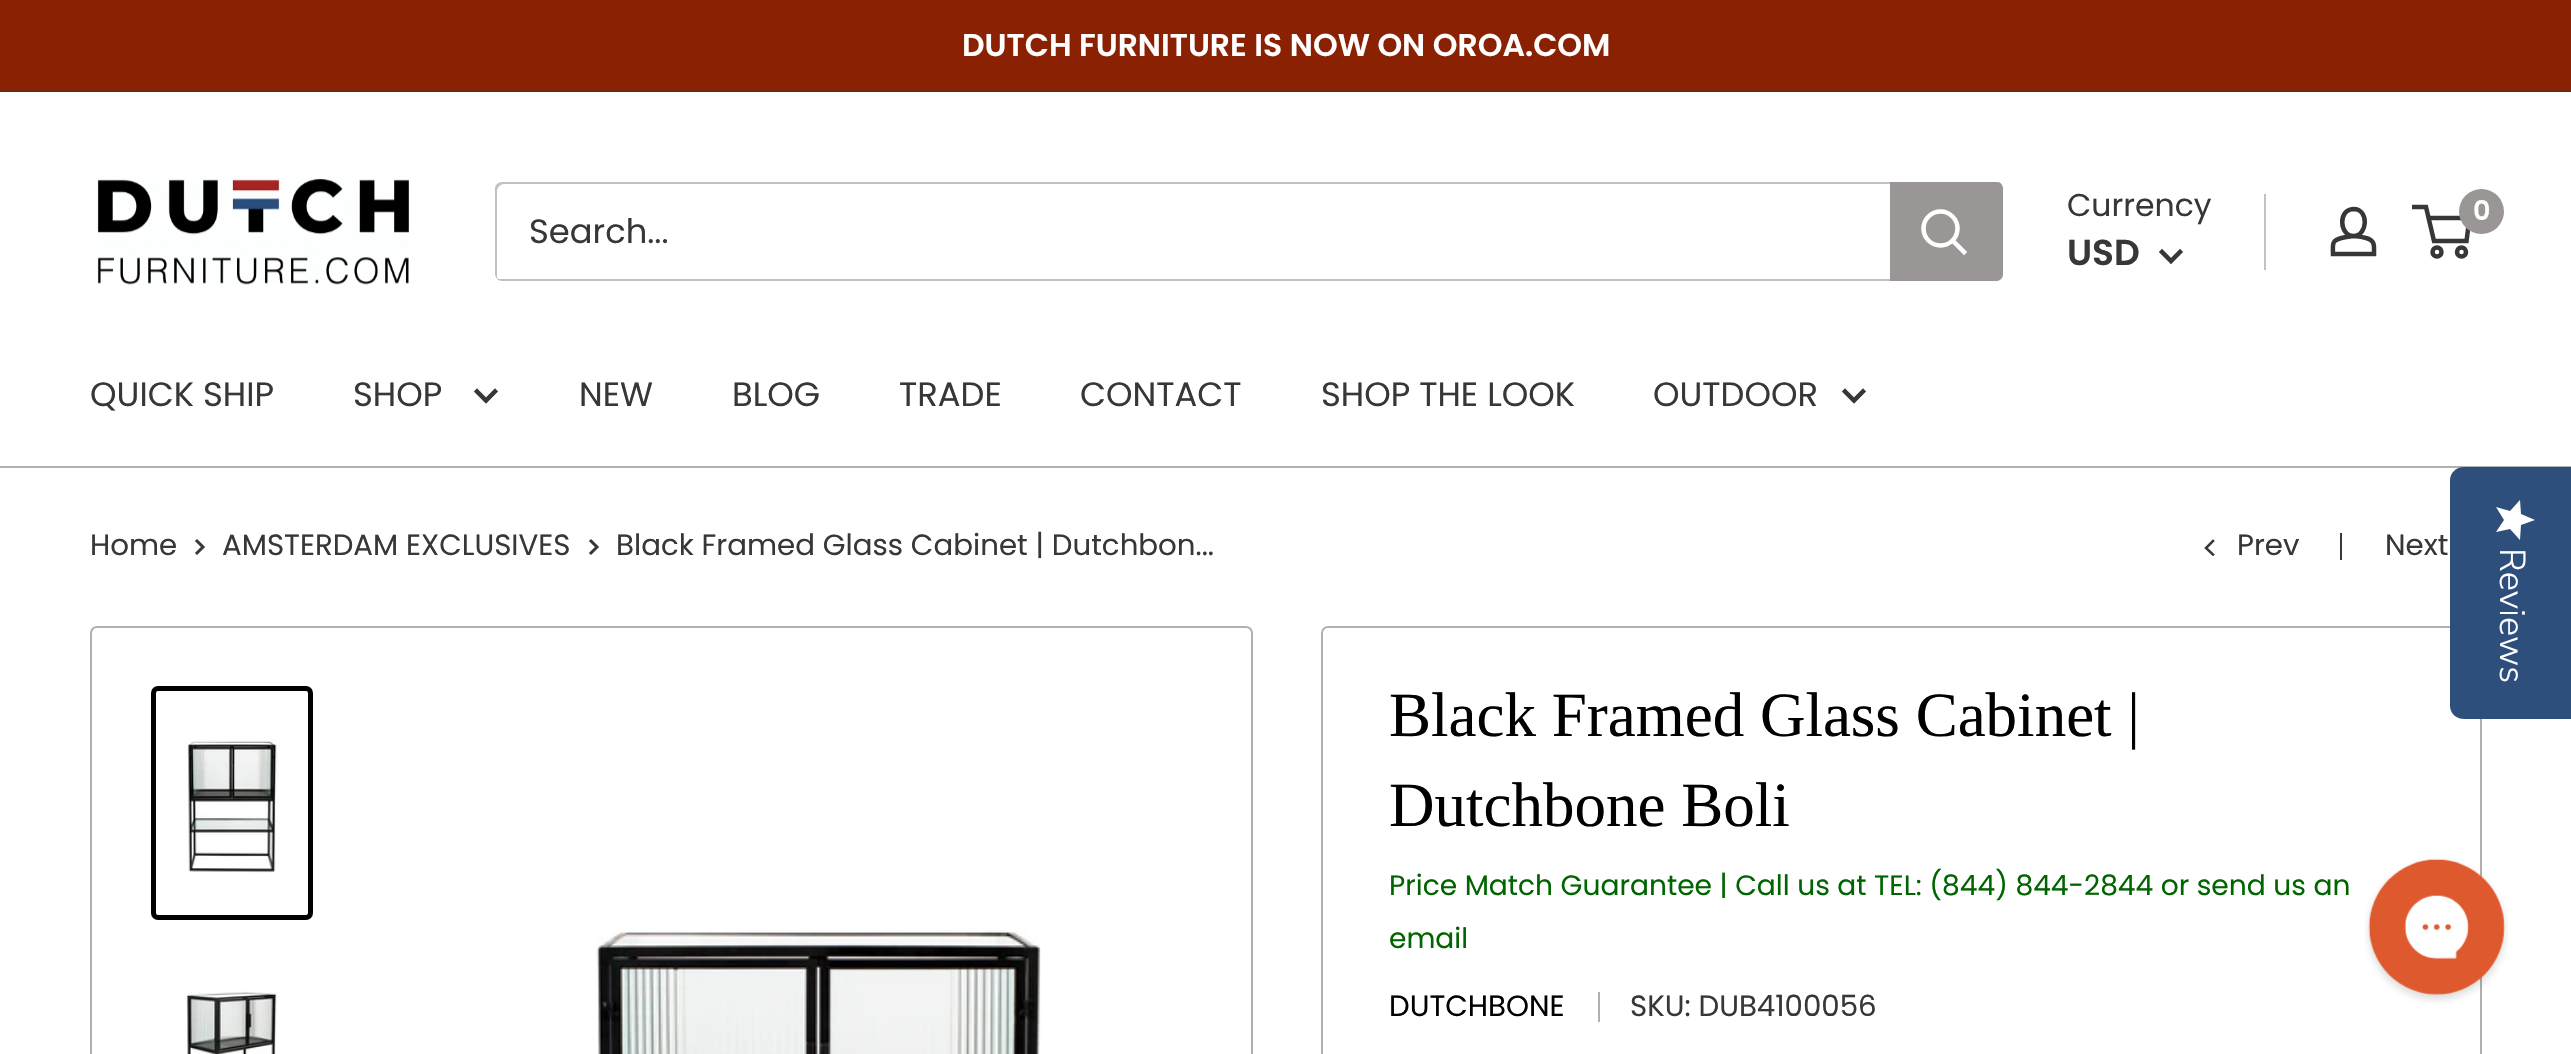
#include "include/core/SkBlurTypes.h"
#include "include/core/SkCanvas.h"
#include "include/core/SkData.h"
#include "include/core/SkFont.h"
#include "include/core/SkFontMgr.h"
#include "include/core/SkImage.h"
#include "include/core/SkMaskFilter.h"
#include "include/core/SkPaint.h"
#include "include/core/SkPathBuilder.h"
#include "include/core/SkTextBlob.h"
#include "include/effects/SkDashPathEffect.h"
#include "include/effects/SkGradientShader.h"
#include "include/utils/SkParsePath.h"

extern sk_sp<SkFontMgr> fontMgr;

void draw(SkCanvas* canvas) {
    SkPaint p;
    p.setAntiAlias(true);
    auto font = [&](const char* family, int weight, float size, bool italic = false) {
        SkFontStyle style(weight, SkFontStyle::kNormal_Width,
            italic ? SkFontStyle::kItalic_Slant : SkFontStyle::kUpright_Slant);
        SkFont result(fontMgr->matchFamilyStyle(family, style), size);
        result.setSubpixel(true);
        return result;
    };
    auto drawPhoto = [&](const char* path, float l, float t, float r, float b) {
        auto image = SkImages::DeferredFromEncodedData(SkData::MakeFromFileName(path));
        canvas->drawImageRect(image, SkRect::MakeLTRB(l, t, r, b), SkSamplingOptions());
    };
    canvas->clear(0xFFFFFFFF);
    p.setColor(0xFF892102);
    canvas->drawRect(SkRect::MakeLTRB(0, 0, 2571, 90), p);
    p.setColor(0xFF6F2610);
    canvas->drawRect(SkRect::MakeLTRB(0, 90, 2571, 92), p);
    auto font1 = font("Poppins", 600, 31.5f);
    p.setColor(0xFFFFFFFF);
    canvas->drawString("DUTCH FURNITURE IS NOW ON OROA.COM", 962, 56, font1, p);
    drawPhoto("media/1.png", 97, 178, 409, 285);
    p.setColor(0xFFC2C2C2);
    canvas->drawPath(SkPathBuilder().moveTo(496, 278).cubicTo(497, 280, 500, 281, 502, 281).lineTo(1996, 281).cubicTo(2000, 281, 2003, 278, 2003, 274).lineTo(2003, 189).cubicTo(2003, 186, 2001, 183, 1999, 182).cubicTo(1999, 184, 2000, 185, 2000, 187).lineTo(2000, 272).cubicTo(2000, 276, 1997, 279, 1994, 279).lineTo(500, 279).cubicTo(499, 279, 497, 279, 496, 278).close().detach(), p);
    p.setColor(0x4D323232);
    canvas->drawPath(SkPathBuilder().moveTo(504, 184).lineTo(1998, 184).cubicTo(2000, 184, 2001, 185, 2002, 185).cubicTo(2001, 183, 1999, 182, 1996, 182).lineTo(502, 182).cubicTo(498, 182, 495, 185, 495, 189).lineTo(495, 274).cubicTo(495, 276, 496, 278, 498, 279).lineTo(497, 277).lineTo(497, 191).cubicTo(497, 188, 500, 184, 504, 184).close().detach(), p);
    auto font2 = font("Poppins", 400, 33.75f);
    p.setColor(0xFF373737);
    canvas->drawString("Search...", 529, 243, font2, p);
    p.setColor(0xFF9B9696);
    canvas->drawPath(SkPathBuilder().moveTo(1890, 182).lineTo(1996, 182).cubicTo(2000, 182, 2003, 185, 2003, 189).lineTo(2003, 274).cubicTo(2003, 278, 2000, 281, 1996, 281).lineTo(1890, 281).close().detach(), p);
    p.setStyle(SkPaint::kStroke_Style);
    p.setStrokeWidth(4.5f);
    p.setStrokeCap(SkPaint::kSquare_Cap);
    p.setColor(0xFFFFFFFF);
    canvas->drawPath(SkPathBuilder().moveTo(1964, 252).lineTo(1953, 241).detach(), p);
    p.setStrokeCap(SkPaint::kButt_Cap);
    canvas->drawCircle(1940.5f, 228.5f, 17, p);
    auto font3 = font("Poppins", 400, 31.5f);
    p.setStyle(SkPaint::kFill_Style);
    p.setColor(0xFF373737);
    canvas->drawString("Currency", 2067, 216, font3, p);
    p.setColor(0xFFC2C2C2);
    canvas->drawRect(SkRect::MakeLTRB(2264, 194, 2266, 270), p);
    auto font4 = font("Poppins", 600, 36);
    p.setColor(0xFF373737);
    canvas->drawString("USD", 2067, 265, font4, p);
    p.setStyle(SkPaint::kStroke_Style);
    p.setStrokeCap(SkPaint::kSquare_Cap);
    canvas->drawPath(SkPathBuilder().moveTo(2180, 252).lineTo(2171, 261).lineTo(2162, 252).detach(), p);
    p.setStrokeCap(SkPaint::kButt_Cap);
    canvas->drawPath(SkPathBuilder().moveTo(2353.5f, 236).cubicTo(2357.5f, 236, 2362, 237, 2366, 238).cubicTo(2375.5f, 240.5f, 2374, 246, 2374, 254).lineTo(2333, 254).cubicTo(2333, 245, 2331, 240.5f, 2341.5f, 238).cubicTo(2345.5f, 237, 2349.5f, 236.5f, 2353.5f, 236).close().moveTo(2353.5f, 236).cubicTo(2339.5f, 236, 2337.5f, 209.5f, 2353.5f, 209).cubicTo(2369.5f, 209, 2367.5f, 236, 2353.5f, 236).close().detach(), p);
    canvas->drawCircle(2437, 252, 4.5f, p);
    canvas->drawCircle(2461.5f, 252, 4.5f, p);
    canvas->drawPath(SkPathBuilder().moveTo(2428.5f, 218).lineTo(2469.5f, 218).lineTo(2466.5f, 241).lineTo(2434, 241).lineTo(2426, 207).lineTo(2412, 207).detach(), p);
    p.setStyle(SkPaint::kFill_Style);
    p.setColor(0xFF9B9696);
    canvas->drawCircle(2481.5f, 211.5f, 22.5f, p);
    auto font5 = font("Poppins", 600, 27);
    p.setColor(0xFFFFFFFF);
    canvas->drawString("0", 2473, 220, font5, p);
    p.setColor(0xFFB1B0B0);
    canvas->drawRect(SkRect::MakeLTRB(0, 466, 2571, 468), p);
    p.setColor(0xFF373737);
    canvas->drawString("QUICK SHIP", 90, 406, font2, p);
    canvas->drawString("SHOP", 353, 406, font2, p);
    p.setStyle(SkPaint::kStroke_Style);
    p.setStrokeCap(SkPaint::kSquare_Cap);
    canvas->drawPath(SkPathBuilder().moveTo(495, 391.5f).lineTo(486, 400.5f).lineTo(477, 391.5f).detach(), p);
    p.setStyle(SkPaint::kFill_Style);
    {
        const struct { const char* s; float x, y; } items[] = {
            {"NEW", 579, 406},
            {"BLOG", 732, 406},
            {"TRADE", 899, 406},
            {"CONTACT", 1080, 406},
            {"SHOP THE LOOK", 1321, 406},
            {"OUTDOOR", 1653, 406},
        };
        for (auto [s, x, y] : items) {
            canvas->drawString(s, x, y, font2, p);
        }
    }
    p.setStyle(SkPaint::kStroke_Style);
    canvas->drawPath(SkPathBuilder().moveTo(1863, 391.5f).lineTo(1854, 400.5f).lineTo(1845, 391.5f).detach(), p);
    auto font6 = font("Poppins", 400, 29.25f);
    p.setStyle(SkPaint::kFill_Style);
    canvas->drawString("Home", 90, 555, font6, p);
    p.setStyle(SkPaint::kStroke_Style);
    p.setStrokeWidth(3);
    canvas->drawPath(SkPathBuilder().moveTo(197, 541).lineTo(203, 547).lineTo(197, 553).detach(), p);
    p.setStyle(SkPaint::kFill_Style);
    canvas->drawString("AMSTERDAM EXCLUSIVES", 222, 555, font6, p);
    p.setStyle(SkPaint::kStroke_Style);
    canvas->drawPath(SkPathBuilder().moveTo(591, 541).lineTo(597, 547).lineTo(591, 553).detach(), p);
    p.setStyle(SkPaint::kFill_Style);
    canvas->drawString("Black Framed Glass Cabinet | Dutchbon...", 616, 555, font6, p);
    p.setStyle(SkPaint::kStroke_Style);
    p.setStrokeWidth(2.5f);
    canvas->drawPath(SkPathBuilder().moveTo(2213, 554.5f).lineTo(2206, 548).lineTo(2213, 541).detach(), p);
    p.setStyle(SkPaint::kFill_Style);
    canvas->drawString("Prev", 2237, 555, font6, p);
    canvas->drawRect(SkRect::MakeLTRB(2340, 533, 2342, 560), p);
    canvas->drawString("Next", 2385, 555, font6, p);
    p.setStyle(SkPaint::kStroke_Style);
    p.setStrokeWidth(2);
    p.setStrokeCap(SkPaint::kButt_Cap);
    p.setColor(0xFFB1B0B0);
    canvas->drawRoundRect(SkRect::MakeLTRB(91, 627, 1252, 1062), 6, 6, p);
    p.setStrokeWidth(5);
    p.setColor(0xFF000000);
    canvas->drawRoundRect(SkRect::MakeLTRB(153.5f, 688.5f, 310.5f, 917.5f), 4.5f, 4.5f, p);
    drawPhoto("media/2.png", 187, 740, 279, 873);
    drawPhoto("media/3.png", 186, 991, 278, 1054);
    drawPhoto("media/4.png", 596, 929, 1041, 1054);
    p.setStrokeWidth(2);
    p.setColor(0xFFB1B0B0);
    canvas->drawRoundRect(SkRect::MakeLTRB(1322, 627, 2481, 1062), 6, 6, p);
    auto font7 = font("Liberation Serif", 400, 63);
    p.setStyle(SkPaint::kFill_Style);
    p.setColor(0xFF000000);
    canvas->drawString("Black Framed Glass Cabinet |", 1389, 736, font7, p);
    canvas->drawString("Dutchbone Boli", 1389, 826, font7, p);
    auto font8 = font("Poppins", 400, 28.1f);
    p.setColor(0xFF006400);
    canvas->drawString("Price Match Guarantee | Call us at TEL: (844) 844-2844 or send us an", 1389, 895, font8, p);
    canvas->drawString("email", 1389, 948, font8, p);
    p.setColor(0xFF000000);
    canvas->drawString("DUTCHBONE", 1389, 1016, font6, p);
    p.setColor(0xFFB1B0B0);
    canvas->drawRect(SkRect::MakeLTRB(1598, 992, 1600, 1022), p);
    p.setColor(0xFF373737);
    canvas->drawString("SKU: DUB4100056", 1630, 1016, font6, p);
    p.setColor(0xFF2E4F7C);
    canvas->drawPath(SkPathBuilder().moveTo(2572, 467).lineTo(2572, 719).lineTo(2464, 719).cubicTo(2456, 719, 2450, 713, 2450, 706).lineTo(2450, 480).cubicTo(2450, 473, 2456, 467, 2464, 467).close().detach(), p);
    {
        const SkColor colors[] = {0xFFFFFFFF, 0xFFEAEAEA};
        const float stops[] = {1, 1};
        const SkPoint ends[] = {{2535, 500}, {2535, 540}};
        p.setShader(SkGradientShader::MakeLinear(ends, colors, stops, 2, SkTileMode::kClamp));
        p.setAlpha(255);
    }
    canvas->drawPath(SkPathBuilder().moveTo(2504, 520).lineTo(2496, 532).lineTo(2510, 529).lineTo(2520, 540).lineTo(2521, 525).lineTo(2535, 520).lineTo(2521, 514).lineTo(2520, 500).lineTo(2510, 511).lineTo(2496, 507).close().detach(), p);
    auto font9 = font("Nunito Sans", 300, 36);
    p.setShader(nullptr);
    p.setColor(0xFFFFFFFF);
    canvas->save();
    canvas->rotate(90, 2500, 548);
    canvas->drawString("Reviews", 2500, 548, font9, p);
    canvas->restore();
    drawPhoto("media/5.png", 2365, 858, 2508, 1003);
}
